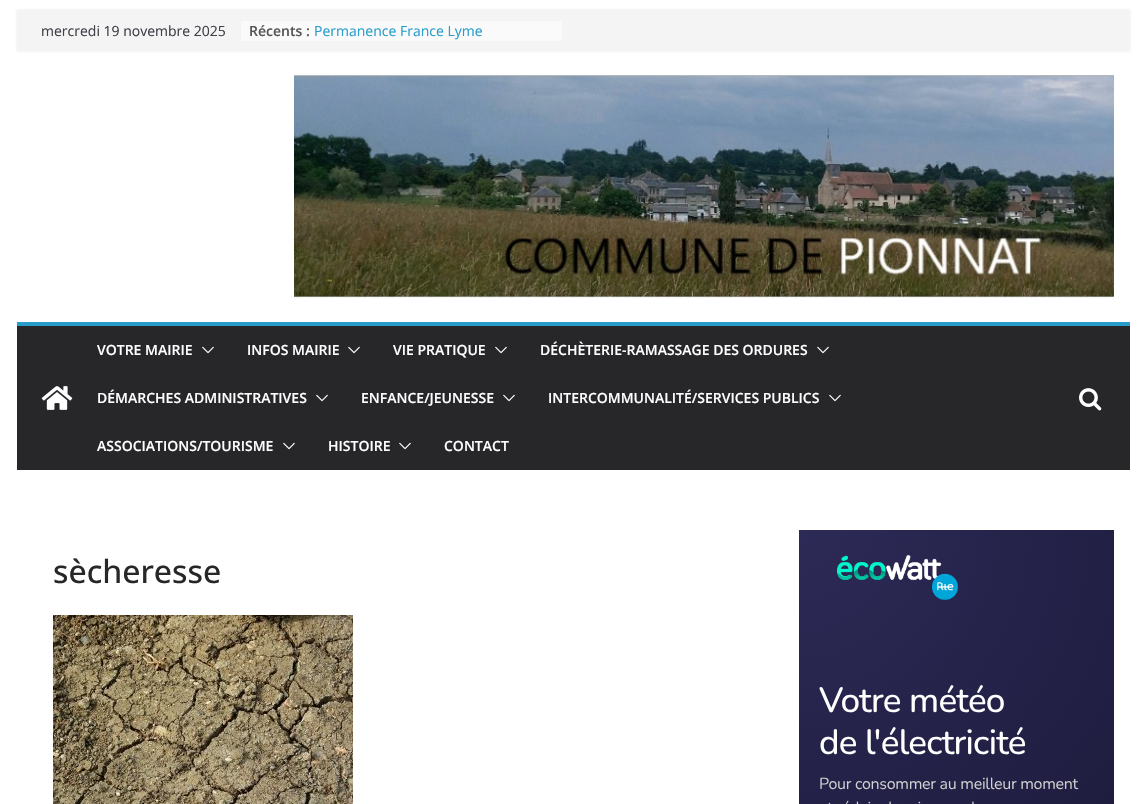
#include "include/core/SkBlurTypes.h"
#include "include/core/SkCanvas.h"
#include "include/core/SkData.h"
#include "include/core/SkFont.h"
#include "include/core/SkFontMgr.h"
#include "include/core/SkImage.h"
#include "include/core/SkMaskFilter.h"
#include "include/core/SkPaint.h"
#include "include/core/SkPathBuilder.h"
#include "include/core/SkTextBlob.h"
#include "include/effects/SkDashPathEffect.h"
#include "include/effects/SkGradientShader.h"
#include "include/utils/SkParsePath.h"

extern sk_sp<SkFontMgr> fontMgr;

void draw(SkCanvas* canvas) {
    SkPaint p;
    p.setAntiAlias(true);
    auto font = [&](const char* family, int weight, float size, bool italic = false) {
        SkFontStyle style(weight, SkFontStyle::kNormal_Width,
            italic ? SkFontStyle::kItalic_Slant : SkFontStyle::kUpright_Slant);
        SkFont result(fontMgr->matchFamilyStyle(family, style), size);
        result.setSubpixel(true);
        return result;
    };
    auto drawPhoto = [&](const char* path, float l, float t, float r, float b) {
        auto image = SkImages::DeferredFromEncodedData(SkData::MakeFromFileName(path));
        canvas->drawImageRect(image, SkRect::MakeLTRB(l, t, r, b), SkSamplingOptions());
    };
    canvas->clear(0xFFFFFFFF);
    p.setColor(0x1A000000);
    p.setMaskFilter(SkMaskFilter::MakeBlur(kNormal_SkBlurStyle, 1));
    canvas->drawRect(SkRect::MakeLTRB(17, 10, 1130, 51), p);
    p.setMaskFilter(nullptr);
    p.setColor(0xFFF4F4F5);
    canvas->drawRect(SkRect::MakeLTRB(17, 10, 1130, 51), p);
    auto font1 = font("Open Sans", 400, 14);
    p.setColor(0xFF3F3F46);
    canvas->drawString("mercredi 19 novembre 2025", 41, 36, font1, p);
    p.setColor(0xFFFAFAFA);
    canvas->drawRect(SkRect::MakeLTRB(241, 21, 562, 41), p);
    auto font2 = font("Open Sans", 600, 14);
    p.setColor(0xFF555555);
    canvas->drawString("Récents :", 249, 36, font2, p);
    p.setColor(0xFF289DCC);
    canvas->drawString("Permanence France Lyme", 314, 36, font1, p);
    drawPhoto("media/1.png", 294, 75, 1114, 298);
    p.setColor(0xFF27272A);
    canvas->drawRect(SkRect::MakeLTRB(17, 326, 1130, 470), p);
    p.setColor(0xFF289DCC);
    canvas->drawRect(SkRect::MakeLTRB(17, 322, 1130, 326), p);
    drawPhoto("media/2.png", 41, 386, 73, 410);
    p.setColor(0xFFFFFFFF);
    canvas->drawString("VOTRE MAIRIE", 97, 355, font2, p);
    drawPhoto("media/3.png", 202, 346, 214, 354);
    canvas->drawString("INFOS MAIRIE", 247, 355, font2, p);
    drawPhoto("media/3.png", 348, 346, 360, 354);
    canvas->drawString("VIE PRATIQUE", 393, 355, font2, p);
    drawPhoto("media/3.png", 495, 346, 507, 354);
    canvas->drawString("DÉCHÈTERIE-RAMASSAGE DES ORDURES", 540, 355, font2, p);
    drawPhoto("media/3.png", 817, 346, 829, 354);
    canvas->drawString("DÉMARCHES ADMINISTRATIVES", 97, 403, font2, p);
    drawPhoto("media/3.png", 316, 394, 328, 402);
    canvas->drawString("ENFANCE/JEUNESSE", 361, 403, font2, p);
    drawPhoto("media/3.png", 503, 394, 515, 402);
    canvas->drawString("INTERCOMMUNALITÉ/SERVICES PUBLICS", 548, 403, font2, p);
    drawPhoto("media/3.png", 829, 394, 841, 402);
    canvas->drawString("ASSOCIATIONS/TOURISME", 97, 451, font2, p);
    drawPhoto("media/3.png", 283, 442, 295, 450);
    canvas->drawString("HISTOIRE", 328, 451, font2, p);
    drawPhoto("media/3.png", 399, 442, 411, 450);
    canvas->drawString("CONTACT", 444, 451, font2, p);
    drawPhoto("media/4.png", 1079, 388, 1102, 411);
    auto font3 = font("Open Sans", 500, 32);
    p.setColor(0xFF27272A);
    canvas->drawString("sècheresse", 53, 583, font3, p);
    drawPhoto("media/5.png", 53, 615, 353, 804);
    drawPhoto("media/6.png", 799, 530, 1114, 804);
}
